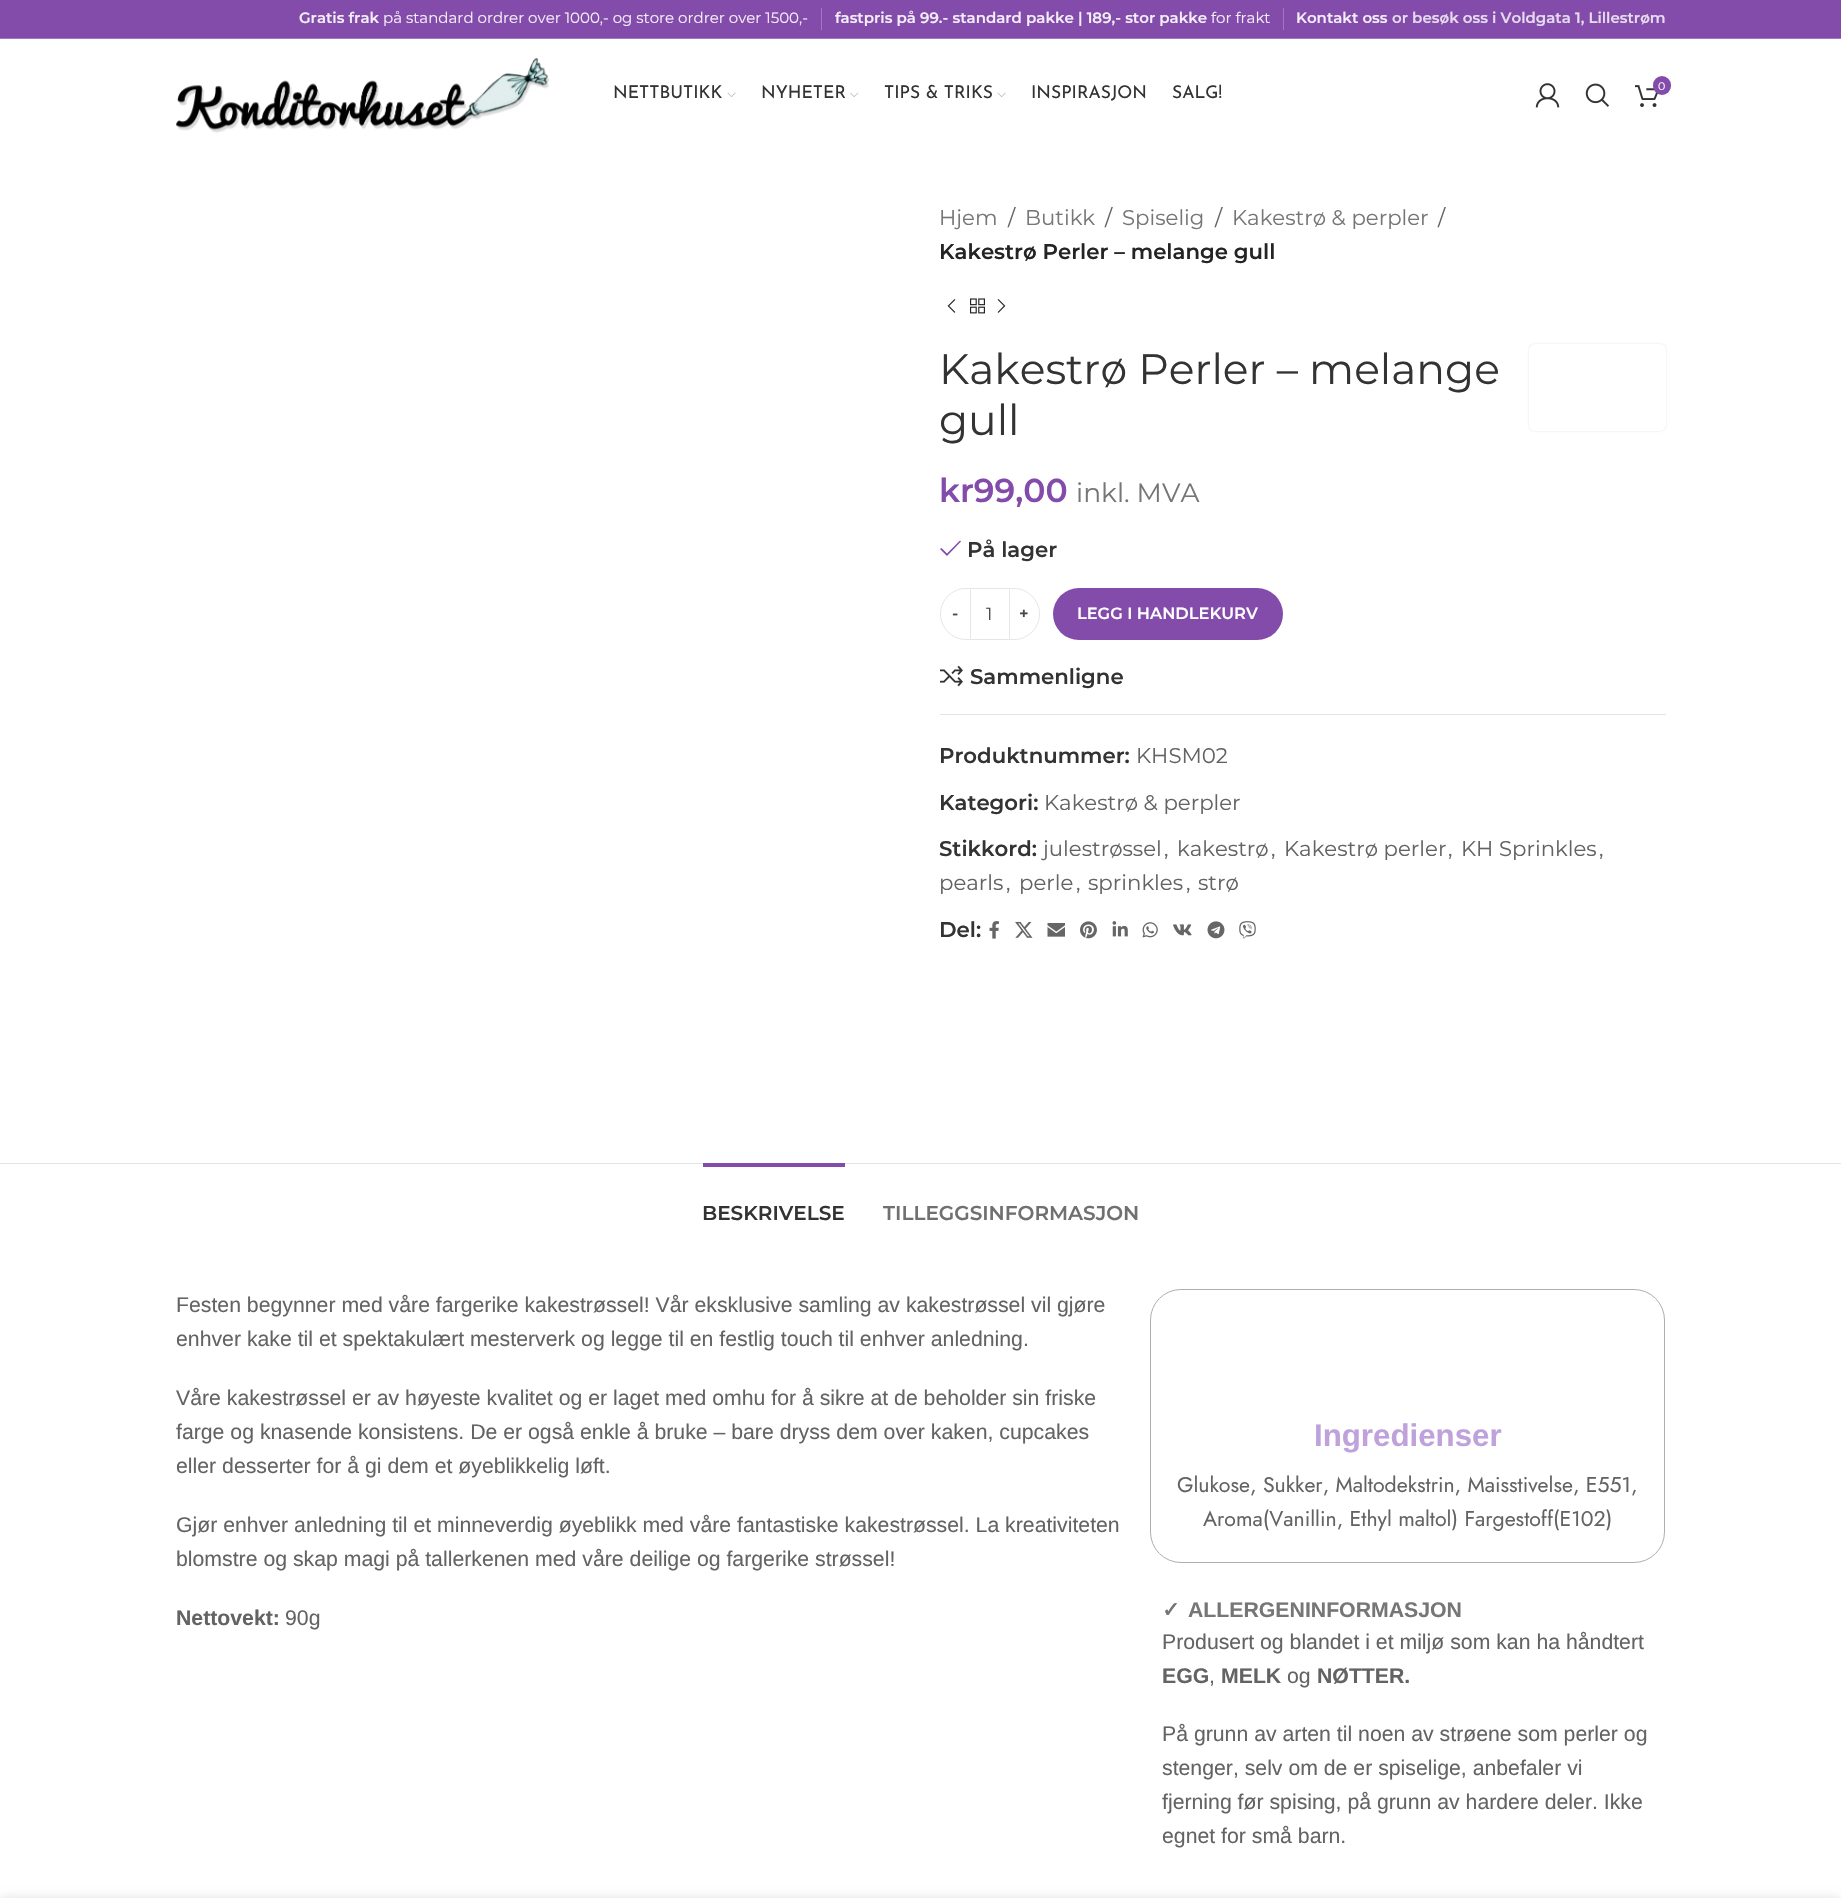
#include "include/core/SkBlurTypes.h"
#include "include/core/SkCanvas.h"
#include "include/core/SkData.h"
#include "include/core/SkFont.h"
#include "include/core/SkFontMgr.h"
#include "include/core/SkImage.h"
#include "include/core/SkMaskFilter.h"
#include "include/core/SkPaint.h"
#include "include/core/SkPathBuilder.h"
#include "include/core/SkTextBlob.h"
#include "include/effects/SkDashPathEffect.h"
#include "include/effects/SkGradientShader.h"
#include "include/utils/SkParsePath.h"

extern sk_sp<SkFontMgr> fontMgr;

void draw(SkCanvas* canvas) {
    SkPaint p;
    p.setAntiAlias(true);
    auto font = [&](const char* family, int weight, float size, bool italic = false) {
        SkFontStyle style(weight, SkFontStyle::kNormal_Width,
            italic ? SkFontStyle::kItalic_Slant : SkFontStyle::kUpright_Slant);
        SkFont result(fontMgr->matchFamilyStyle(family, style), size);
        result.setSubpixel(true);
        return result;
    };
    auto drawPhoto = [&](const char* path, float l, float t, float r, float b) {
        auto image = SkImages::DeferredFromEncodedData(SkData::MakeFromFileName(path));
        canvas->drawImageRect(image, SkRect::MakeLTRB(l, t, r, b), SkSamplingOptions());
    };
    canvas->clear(0xFFFFFFFF);
    p.setColor(0xFF834CAA);
    canvas->drawRect(SkRect::MakeLTRB(0, 0, 1841, 38), p);
    p.setColor(0xFFA279BF);
    canvas->drawRect(SkRect::MakeLTRB(0, 38, 1841, 39), p);
    auto font1 = font("Montserrat", 600, 15);
    p.setColor(0xFFF3EDF7);
    canvas->drawString("Gratis frak", 299, 23, font1, p);
    auto font2 = font("Montserrat", 400, 15);
    canvas->drawString("på standard ordrer over 1000,- og store ordrer over 1500,-", 383, 23, font2, p);
    p.setColor(0xFFA279BF);
    canvas->drawRect(SkRect::MakeLTRB(821, 8, 822, 30), p);
    p.setColor(0xFFF3EDF7);
    canvas->drawString("fastpris på 99.- standard pakke | 189,- stor pakke", 835, 23, font1, p);
    canvas->drawString("for frakt", 1211, 23, font2, p);
    p.setColor(0xFFA279BF);
    canvas->drawRect(SkRect::MakeLTRB(1283, 8, 1284, 30), p);
    p.setColor(0xFFF3EDF7);
    canvas->drawString("Kontakt oss", 1296, 23, font1, p);
    p.setColor(0xFFE6DBEE);
    canvas->drawString("or besøk oss i Voldgata 1, Lillestrøm", 1392, 23, font1, p);
    drawPhoto("media/1.png", 176, 57, 550, 133);
    auto font3 = font("Josefin Sans", 400, 17.5f);
    p.setColor(0xFF333333);
    canvas->drawString("NETTBUTIKK", 613, 98, font3, p);
    drawPhoto("media/2.png", 727, 92, 736, 97);
    canvas->drawString("NYHETER", 761, 98, font3, p);
    drawPhoto("media/3.png", 850, 92, 858, 97);
    canvas->drawString("TIPS & TRIKS", 884, 98, font3, p);
    drawPhoto("media/2.png", 997, 92, 1006, 97);
    canvas->drawString("INSPIRASJON", 1031, 98, font3, p);
    canvas->drawString("SALG!", 1172, 98, font3, p);
    drawPhoto("media/4.png", 1535, 83, 1560, 108);
    drawPhoto("media/5.png", 1585, 83, 1609, 107);
    drawPhoto("media/6.png", 1635, 85, 1658, 107);
    p.setColor(0xFF834BAA);
    canvas->drawRoundRect(SkRect::MakeLTRB(1653, 76, 1671, 95), 9, 9, p);
    auto font4 = font("Montserrat", 400, 11);
    p.setColor(0xFFFFFFFF);
    canvas->drawString("0", 1658, 90, font4, p);
    auto font5 = font("Montserrat", 400, 21.25f);
    p.setColor(0xFF767676);
    canvas->drawString("Hjem", 939, 225, font5, p);
    p.setColor(0xFF636363);
    canvas->drawString("/", 1008, 225, font5, p);
    p.setColor(0xFF767676);
    canvas->drawString("Butikk", 1025, 225, font5, p);
    p.setColor(0xFF636363);
    canvas->drawString("/", 1105, 225, font5, p);
    p.setColor(0xFF767676);
    canvas->drawString("Spiselig", 1122, 225, font5, p);
    p.setColor(0xFF636363);
    canvas->drawString("/", 1215, 225, font5, p);
    p.setColor(0xFF767676);
    canvas->drawString("Kakestrø & perpler", 1232, 225, font5, p);
    p.setColor(0xFF636363);
    canvas->drawString("/", 1438, 225, font5, p);
    auto font6 = font("Montserrat", 600, 21.25f);
    p.setColor(0xFF242424);
    canvas->drawString("Kakestrø Perler – melange gull", 939, 259, font6, p);
    drawPhoto("media/7.png", 947, 299, 956, 313);
    drawPhoto("media/8.png", 970, 298, 985, 314);
    drawPhoto("media/9.png", 997, 299, 1006, 313);
    auto font7 = font("Montserrat", 400, 42.5f);
    p.setColor(0xFF333333);
    canvas->drawString("Kakestrø Perler – melange", 939, 384, font7, p);
    canvas->drawString("gull", 939, 435, font7, p);
    p.setColor(0x1F000000);
    p.setMaskFilter(SkMaskFilter::MakeBlur(kNormal_SkBlurStyle, 1));
    canvas->drawRoundRect(SkRect::MakeLTRB(1529, 344, 1666, 431), 6, 6, p);
    p.setMaskFilter(nullptr);
    p.setColor(0xFFFFFFFF);
    canvas->drawRoundRect(SkRect::MakeLTRB(1529, 344, 1666, 431), 6, 6, p);
    auto font8 = font("Montserrat", 600, 33);
    p.setColor(0xFF834BAA);
    canvas->drawString("kr99,00", 939, 502, font8, p);
    auto font9 = font("Montserrat", 400, 26.5f);
    p.setColor(0xFF767676);
    canvas->drawString("inkl. MVA", 1076, 502, font9, p);
    p.setColor(0xFF834BAA);
    canvas->drawPath(SkPathBuilder().moveTo(961, 541.5f).lineTo(960, 540.5f).lineTo(947, 553.5f).lineTo(941.5f, 548).lineTo(940, 549).lineTo(947, 556).close().detach(), p);
    p.setColor(0xFF333333);
    canvas->drawString("På lager", 967, 557, font6, p);
    p.setStyle(SkPaint::kStroke_Style);
    p.setStrokeWidth(1);
    p.setColor(0xFFE6E6E6);
    canvas->drawPath(SkPathBuilder().moveTo(966, 588.5f).lineTo(970.5f, 588.5f).lineTo(970.5f, 639.5f).lineTo(966, 639.5f).cubicTo(952, 639.5f, 940.5f, 628, 940.5f, 614).cubicTo(940.5f, 600, 952, 588.5f, 966, 588.5f).close().detach(), p);
    auto font10 = font("Montserrat", 600, 16.25f);
    p.setStyle(SkPaint::kFill_Style);
    p.setColor(0xFF494949);
    canvas->drawString("-", 952, 619, font10, p);
    p.setColor(0xFFE6E6E6);
    canvas->drawRect(SkRect::MakeLTRB(971, 588, 1009, 589), p);
    canvas->drawRect(SkRect::MakeLTRB(971, 639, 1009, 640), p);
    auto font11 = font("Montserrat", 400, 17.5f);
    p.setColor(0xFF494949);
    canvas->drawString("1", 986, 620, font11, p);
    p.setStyle(SkPaint::kStroke_Style);
    p.setColor(0xFFE6E6E6);
    canvas->drawPath(SkPathBuilder().moveTo(1009.5f, 588.5f).lineTo(1014, 588.5f).cubicTo(1028, 588.5f, 1039.5f, 600, 1039.5f, 614).cubicTo(1039.5f, 628, 1028, 639.5f, 1014, 639.5f).lineTo(1009.5f, 639.5f).close().detach(), p);
    p.setStyle(SkPaint::kFill_Style);
    p.setColor(0xFF494949);
    canvas->drawString("+", 1019, 619, font10, p);
    p.setColor(0xFF834BAA);
    canvas->drawRoundRect(SkRect::MakeLTRB(1053, 588, 1283, 640), 26, 26, p);
    p.setColor(0xFFFFFFFF);
    canvas->drawString("LEGG I HANDLEKURV", 1077, 619, font10, p);
    drawPhoto("media/10.png", 940, 665, 963, 687);
    p.setColor(0xFF333333);
    canvas->drawString("Sammenligne", 970, 684, font6, p);
    p.setColor(0xFFE4E4E4);
    canvas->drawRect(SkRect::MakeLTRB(940, 714, 1666, 715), p);
    p.setColor(0xFF333333);
    canvas->drawString("Produktnummer:", 939, 763, font6, p);
    p.setColor(0xFF636363);
    canvas->drawString("KHSM02", 1136, 763, font5, p);
    p.setColor(0xFF333333);
    canvas->drawString("Kategori:", 939, 810, font6, p);
    p.setColor(0xFF636363);
    canvas->drawString("Kakestrø & perpler", 1044, 810, font5, p);
    p.setColor(0xFF333333);
    canvas->drawString("Stikkord:", 939, 856, font6, p);
    p.setColor(0xFF636363);
    {
        const struct { const char* s; float x, y; } items[] = {
            {"julestrøssel", 1043, 856},
            {",", 1164, 856},
            {"kakestrø", 1177, 856},
            {",", 1271, 856},
            {"Kakestrø perler", 1284, 856},
            {",", 1448, 856},
            {"KH Sprinkles", 1461, 856},
            {",", 1599, 856},
            {"pearls", 939, 890},
            {",", 1006, 890},
            {"perle", 1019, 890},
            {",", 1076, 890},
            {"sprinkles", 1088, 890},
            {",", 1186, 890},
            {"strø", 1198, 890},
        };
        for (auto [s, x, y] : items) {
            canvas->drawString(s, x, y, font5, p);
        }
    }
    p.setColor(0xFF333333);
    canvas->drawString("Del:", 939, 937, font6, p);
    drawPhoto("media/11.png", 989, 921, 999, 939);
    drawPhoto("media/12.png", 1015, 921, 1033, 938);
    drawPhoto("media/13.png", 1047, 923, 1065, 937);
    drawPhoto("media/14.png", 1080, 921, 1097, 939);
    drawPhoto("media/15.png", 1112, 921, 1128, 937);
    drawPhoto("media/16.png", 1142, 922, 1158, 938);
    drawPhoto("media/17.png", 1173, 924, 1192, 936);
    drawPhoto("media/18.png", 1207, 921, 1225, 939);
    drawPhoto("media/19.png", 1239, 921, 1256, 939);
    p.setColor(0xFFE4E4E4);
    canvas->drawRect(SkRect::MakeLTRB(0, 1163, 1841, 1164), p);
    p.setColor(0xFF834BAA);
    canvas->drawRect(SkRect::MakeLTRB(703, 1163, 845, 1167), p);
    auto font12 = font("Montserrat", 600, 20);
    p.setColor(0xFF333333);
    canvas->drawString("BESKRIVELSE", 702, 1220, font12, p);
    p.setColor(0xFF707070);
    canvas->drawString("TILLEGGSINFORMASJON", 883, 1220, font12, p);
    auto font13 = font("Liberation Sans", 400, 21.25f);
    p.setColor(0xFF636363);
    {
        const struct { const char* s; float x, y; } items[] = {
            {"Festen begynner med våre fargerike kakestrøssel! Vår eksklusive samling av kakestrøssel vil gjøre", 176, 1312},
            {"enhver kake til et spektakulært mesterverk og legge til en festlig touch til enhver anledning.", 176, 1346},
            {"Våre kakestrøssel er av høyeste kvalitet og er laget med omhu for å sikre at de beholder sin friske", 176, 1405},
            {"farge og knasende konsistens. De er også enkle å bruke – bare dryss dem over kaken, cupcakes", 176, 1439},
            {"eller desserter for å gi dem et øyeblikkelig løft.", 176, 1473},
            {"Gjør enhver anledning til et minneverdig øyeblikk med våre fantastiske kakestrøssel. La kreativiteten", 176, 1532},
            {"blomstre og skap magi på tallerkenen med våre deilige og fargerike strøssel!", 176, 1566},
        };
        for (auto [s, x, y] : items) {
            canvas->drawString(s, x, y, font13, p);
        }
    }
    auto font14 = font("Liberation Sans", 700, 21.25f);
    canvas->drawString("Nettovekt:", 176, 1625, font14, p);
    canvas->drawString("90g", 285, 1625, font13, p);
    p.setStyle(SkPaint::kStroke_Style);
    p.setColor(0xFFB1ADAD);
    canvas->drawRoundRect(SkRect::MakeLTRB(1150.5f, 1289.5f, 1664.5f, 1562.5f), 30.5f, 30.5f, p);
    auto font15 = font("Liberation Sans", 700, 31.25f);
    p.setStyle(SkPaint::kFill_Style);
    p.setColor(0xFFBFA2DB);
    canvas->drawString("Ingredienser", 1314, 1446, font15, p);
    auto font16 = font("Jost", 400, 21.25f);
    p.setColor(0xFF636363);
    canvas->drawString("Glukose, Sukker, Maltodekstrin, Maisstivelse, E551,", 1177, 1492, font16, p);
    canvas->drawString("Aroma(Vanillin, Ethyl maltol) Fargestoff(E102)", 1203, 1526, font16, p);
    auto font17 = font("DejaVu Sans", 700, 21.25f);
    p.setColor(0xFF767676);
    canvas->drawString("✓", 1162, 1617, font17, p);
    canvas->drawString("ALLERGENINFORMASJON", 1188, 1617, font14, p);
    p.setColor(0xFF636363);
    canvas->drawString("Produsert og blandet i et miljø som kan ha håndtert", 1162, 1649, font13, p);
    canvas->drawString("EGG", 1162, 1683, font14, p);
    canvas->drawString(",", 1209, 1683, font13, p);
    canvas->drawString("MELK", 1221, 1683, font14, p);
    canvas->drawString("og", 1287, 1683, font13, p);
    canvas->drawString("NØTTER.", 1317, 1683, font14, p);
    {
        const struct { const char* s; float x, y; } items[] = {
            {"På grunn av arten til noen av strøene som perler og", 1162, 1741},
            {"stenger, selv om de er spiselige, anbefaler vi", 1162, 1775},
            {"fjerning før spising, på grunn av hardere deler. Ikke", 1162, 1809},
            {"egnet for små barn.", 1162, 1843},
        };
        for (auto [s, x, y] : items) {
            canvas->drawString(s, x, y, font13, p);
        }
    }
    p.setColor(0x24000000);
    p.setMaskFilter(SkMaskFilter::MakeBlur(kNormal_SkBlurStyle, 5.5f));
    canvas->drawRect(SkRect::MakeLTRB(0, 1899, 1841, 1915), p);
    p.setMaskFilter(nullptr);
}
